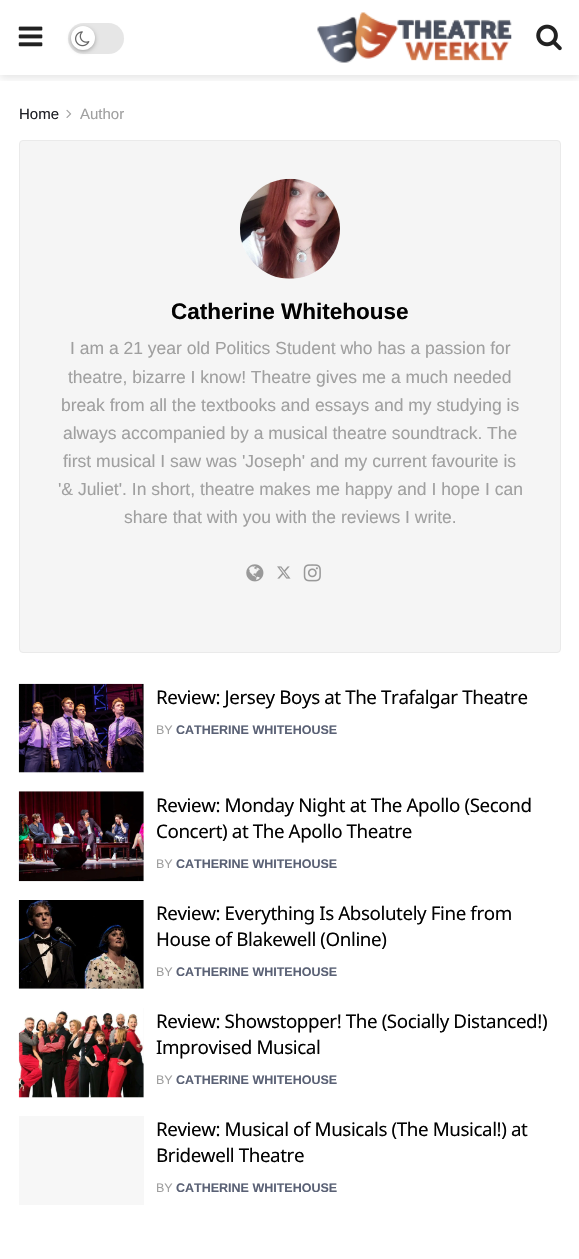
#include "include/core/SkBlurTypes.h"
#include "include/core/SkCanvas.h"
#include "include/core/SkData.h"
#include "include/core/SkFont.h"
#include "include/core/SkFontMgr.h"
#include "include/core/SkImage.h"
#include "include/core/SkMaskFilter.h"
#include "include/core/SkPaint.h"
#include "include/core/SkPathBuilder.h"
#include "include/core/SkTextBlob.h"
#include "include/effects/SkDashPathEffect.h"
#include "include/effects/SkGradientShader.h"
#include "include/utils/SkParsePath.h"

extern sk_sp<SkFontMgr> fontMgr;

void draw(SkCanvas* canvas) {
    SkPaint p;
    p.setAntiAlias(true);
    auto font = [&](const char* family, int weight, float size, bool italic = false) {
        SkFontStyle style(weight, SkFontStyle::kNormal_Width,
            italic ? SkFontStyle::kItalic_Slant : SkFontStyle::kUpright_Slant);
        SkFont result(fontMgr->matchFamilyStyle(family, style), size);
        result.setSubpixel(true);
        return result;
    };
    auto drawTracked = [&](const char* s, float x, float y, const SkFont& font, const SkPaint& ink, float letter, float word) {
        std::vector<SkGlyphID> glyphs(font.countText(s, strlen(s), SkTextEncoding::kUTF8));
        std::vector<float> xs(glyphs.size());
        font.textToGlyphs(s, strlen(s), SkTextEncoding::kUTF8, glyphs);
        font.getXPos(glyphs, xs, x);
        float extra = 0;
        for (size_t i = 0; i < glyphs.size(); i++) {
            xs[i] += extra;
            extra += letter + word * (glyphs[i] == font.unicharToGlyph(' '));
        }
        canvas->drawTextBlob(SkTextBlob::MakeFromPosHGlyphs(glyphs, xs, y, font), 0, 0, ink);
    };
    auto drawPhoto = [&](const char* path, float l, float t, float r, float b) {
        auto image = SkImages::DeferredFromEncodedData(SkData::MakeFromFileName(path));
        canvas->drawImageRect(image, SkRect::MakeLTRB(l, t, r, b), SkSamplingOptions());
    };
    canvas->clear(0xFFFFFFFF);
    canvas->save();
    canvas->clipRect(SkRect::MakeLTRB(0, 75, 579, 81));
    p.setColor(0x1A000000);
    p.setMaskFilter(SkMaskFilter::MakeBlur(kNormal_SkBlurStyle, 4));
    canvas->drawRect(SkRect::MakeLTRB(0, 3, 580, 78), p);
    p.setMaskFilter(nullptr);
    canvas->restore();
    drawPhoto("media/1.png", 18, 26, 43, 47);
    p.setColor(0xFFE6E6E6);
    canvas->drawRoundRect(SkRect::MakeLTRB(68, 23, 124, 54), 15.5f, 15.5f, p);
    p.setColor(0x4D000000);
    p.setMaskFilter(SkMaskFilter::MakeBlur(kNormal_SkBlurStyle, 2));
    canvas->drawRoundRect(SkRect::MakeLTRB(71, 28, 95, 51), 11.5f, 11.5f, p);
    p.setMaskFilter(nullptr);
    p.setColor(0xFFFFFFFF);
    canvas->drawCircle(83, 38, 12, p);
    drawPhoto("media/2.png", 75, 31, 90, 47);
    drawPhoto("media/3.png", 317, 12, 512, 63);
    drawPhoto("media/4.png", 536, 24, 562, 51);
    auto font1 = font("Liberation Sans", 400, 15);
    p.setColor(0xFF1F2026);
    canvas->drawString("Home", 19, 119, font1, p);
    drawPhoto("media/5.png", 66, 109, 72, 118);
    p.setColor(0xFFA0A0A0);
    canvas->drawString("Author", 80, 119, font1, p);
    p.setColor(0xFFF5F5F5);
    canvas->drawRoundRect(SkRect::MakeLTRB(19.5f, 140.5f, 560.5f, 652.5f), 3.5f, 3.5f, p);
    p.setStyle(SkPaint::kStroke_Style);
    p.setStrokeWidth(1);
    p.setColor(0xFFEAEAEA);
    canvas->drawRoundRect(SkRect::MakeLTRB(19.5f, 140.5f, 560.5f, 652.5f), 3.5f, 3.5f, p);
    drawPhoto("media/6.png", 240, 178, 340, 279);
    auto font2 = font("Liberation Sans", 700, 22.5f);
    p.setStyle(SkPaint::kFill_Style);
    p.setColor(0xFF020202);
    canvas->drawString("Catherine Whitehouse", 171, 319, font2, p);
    auto font3 = font("Liberation Sans", 400, 17.5f);
    p.setColor(0xFFA0A0A0);
    {
        const struct { const char* s; float x, y; } items[] = {
            {"I am a 21 year old Politics Student who has a passion for", 70, 354},
            {"theatre, bizarre I know! Theatre gives me a much needed", 68, 383},
            {"break from all the textbooks and essays and my studying is", 61, 411},
            {"always accompanied by a musical theatre soundtrack. The", 63, 439},
            {"first musical I saw was 'Joseph' and my current favourite is", 63, 467},
            {"'& Juliet'. In short, theatre makes me happy and I hope I can", 58, 495},
            {"share that with you with the reviews I write.", 124, 523},
        };
        for (auto [s, x, y] : items) {
            canvas->drawString(s, x, y, font3, p);
        }
    }
    drawPhoto("media/7.png", 246, 564, 264, 582);
    drawPhoto("media/8.png", 277, 566, 291, 579);
    drawPhoto("media/9.png", 303, 564, 321, 582);
    p.setColor(0xFFF7F7F7);
    canvas->drawRect(SkRect::MakeLTRB(19, 684, 144, 773), p);
    drawPhoto("media/10.png", 18, 683, 144, 773);
    auto font4 = font("Noto Sans", 400, 18.75f);
    p.setColor(0xFF020202);
    drawTracked("Review: Jersey Boys at The Trafalgar Theatre", 156, 704, font4, p, -0.4f, 0);
    auto font5 = font("Liberation Sans", 400, 12.5f);
    p.setColor(0xFFA0A0A0);
    canvas->drawString("BY", 156, 734, font5, p);
    auto font6 = font("Liberation Sans", 700, 12.5f);
    p.setColor(0xFF5A6175);
    canvas->drawString("CATHERINE WHITEHOUSE", 176, 734, font6, p);
    p.setColor(0xFFF7F7F7);
    canvas->drawRect(SkRect::MakeLTRB(19, 791, 144, 881), p);
    drawPhoto("media/11.png", 18, 791, 144, 882);
    p.setColor(0xFF020202);
    drawTracked("Review: Monday Night at The Apollo (Second", 156, 812, font4, p, -0.4f, 0);
    drawTracked("Concert) at The Apollo Theatre", 156, 838, font4, p, -0.4f, 0);
    p.setColor(0xFFA0A0A0);
    canvas->drawString("BY", 156, 868, font5, p);
    p.setColor(0xFF5A6175);
    canvas->drawString("CATHERINE WHITEHOUSE", 176, 868, font6, p);
    p.setColor(0xFFF7F7F7);
    canvas->drawRect(SkRect::MakeLTRB(19, 900, 144, 989), p);
    drawPhoto("media/12.png", 18, 900, 144, 989);
    p.setColor(0xFF020202);
    drawTracked("Review: Everything Is Absolutely Fine from", 156, 920, font4, p, -0.4f, 0);
    drawTracked("House of Blakewell (Online)", 156, 946, font4, p, -0.4f, 0);
    p.setColor(0xFFA0A0A0);
    canvas->drawString("BY", 156, 976, font5, p);
    p.setColor(0xFF5A6175);
    canvas->drawString("CATHERINE WHITEHOUSE", 176, 976, font6, p);
    p.setColor(0xFFF7F7F7);
    canvas->drawRect(SkRect::MakeLTRB(19, 1008, 144, 1098), p);
    drawPhoto("media/13.png", 18, 1008, 144, 1098);
    p.setColor(0xFF020202);
    drawTracked("Review: Showstopper! The (Socially Distanced!)", 156, 1028, font4, p, -0.4f, 0);
    drawTracked("Improvised Musical", 156, 1054, font4, p, -0.4f, 0);
    p.setColor(0xFFA0A0A0);
    canvas->drawString("BY", 156, 1084, font5, p);
    p.setColor(0xFF5A6175);
    canvas->drawString("CATHERINE WHITEHOUSE", 176, 1084, font6, p);
    p.setColor(0xFFF7F7F7);
    canvas->drawRect(SkRect::MakeLTRB(19, 1116, 144, 1205), p);
    p.setColor(0xFF020202);
    drawTracked("Review: Musical of Musicals (The Musical!) at", 156, 1136, font4, p, -0.4f, 0);
    drawTracked("Bridewell Theatre", 156, 1162, font4, p, -0.4f, 0);
    p.setColor(0xFFA0A0A0);
    canvas->drawString("BY", 156, 1192, font5, p);
    p.setColor(0xFF5A6175);
    canvas->drawString("CATHERINE WHITEHOUSE", 176, 1192, font6, p);
}
